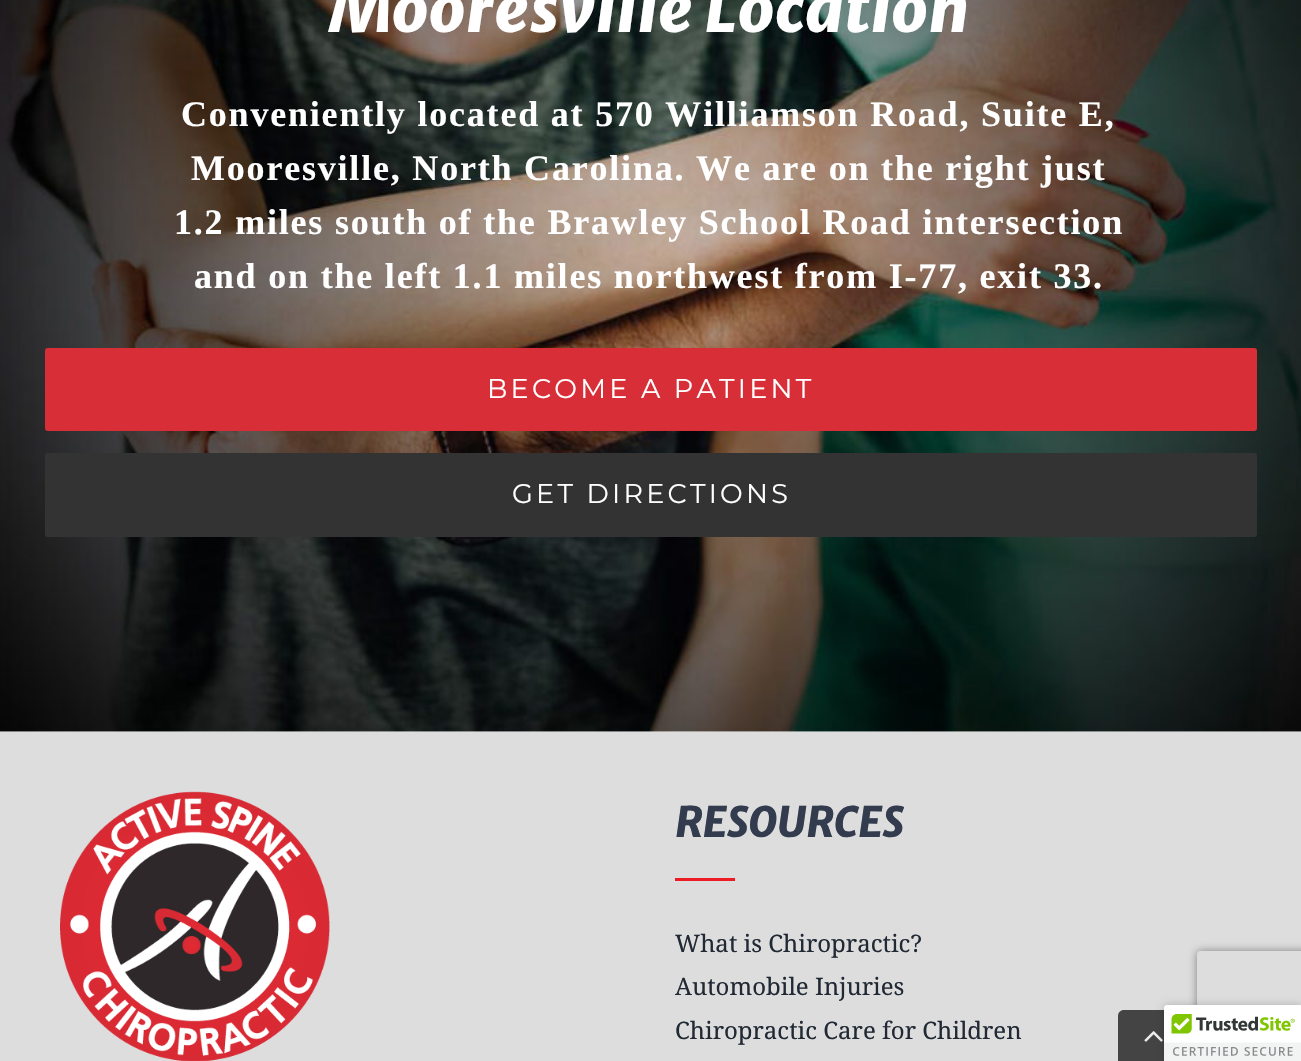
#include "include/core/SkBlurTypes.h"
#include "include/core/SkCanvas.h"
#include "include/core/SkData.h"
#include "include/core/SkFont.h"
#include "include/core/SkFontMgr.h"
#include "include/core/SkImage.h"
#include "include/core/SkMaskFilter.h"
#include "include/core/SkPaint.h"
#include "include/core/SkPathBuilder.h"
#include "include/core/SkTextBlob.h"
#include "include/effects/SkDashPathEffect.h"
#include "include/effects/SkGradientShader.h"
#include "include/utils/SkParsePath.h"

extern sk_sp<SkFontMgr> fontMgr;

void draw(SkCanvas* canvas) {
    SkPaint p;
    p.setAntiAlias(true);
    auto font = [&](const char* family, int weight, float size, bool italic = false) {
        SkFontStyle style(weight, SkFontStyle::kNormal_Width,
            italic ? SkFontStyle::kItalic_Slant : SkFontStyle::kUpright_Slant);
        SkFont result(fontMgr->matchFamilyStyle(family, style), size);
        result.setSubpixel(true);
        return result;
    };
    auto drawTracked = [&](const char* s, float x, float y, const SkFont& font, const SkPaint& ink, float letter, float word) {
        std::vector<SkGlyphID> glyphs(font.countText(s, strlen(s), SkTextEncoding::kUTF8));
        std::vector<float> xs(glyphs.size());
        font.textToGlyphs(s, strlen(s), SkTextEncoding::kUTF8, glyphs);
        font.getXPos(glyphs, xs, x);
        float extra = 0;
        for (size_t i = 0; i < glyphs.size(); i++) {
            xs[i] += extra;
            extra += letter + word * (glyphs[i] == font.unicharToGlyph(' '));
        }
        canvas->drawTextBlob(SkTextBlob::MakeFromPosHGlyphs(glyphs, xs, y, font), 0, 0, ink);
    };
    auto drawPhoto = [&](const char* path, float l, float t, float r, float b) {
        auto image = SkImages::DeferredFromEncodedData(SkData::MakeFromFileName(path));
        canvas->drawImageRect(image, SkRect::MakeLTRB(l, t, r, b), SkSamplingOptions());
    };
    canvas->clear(0xFFFFFFFF);
    drawPhoto("media/1.png", 0, 0, 1301, 732);
    auto font1 = font("Merriweather Sans", 800, 64.25f, true);
    p.setColor(0xFFFFFFFF);
    canvas->drawString("Mooresville Location", 329, 32, font1, p);
    auto font2 = font("Liberation Serif", 700, 36);
    {
        const struct { const char* s; float x, y; } items[] = {
            {"Conveniently located at 570 Williamson Road, Suite E,", 181, 126},
            {"Mooresville, North Carolina. We are on the right just", 191, 180},
            {"1.2 miles south of the Brawley School Road intersection", 174, 234},
            {"and on the left 1.1 miles northwest from I-77, exit 33.", 194, 288},
        };
        for (auto [s, x, y] : items) {
            drawTracked(s, x, y, font2, p, 1.8f, 0);
        }
    }
    p.setColor(0xFFD82E37);
    canvas->drawRoundRect(SkRect::MakeLTRB(45, 348, 1257, 431), 3, 3, p);
    auto font3 = font("Montserrat", 100, 27);
    p.setColor(0xFFFFFFFF);
    drawTracked("BECOME A PATIENT", 487, 398, font3, p, 3.25f, 0);
    p.setColor(0xFF333333);
    canvas->drawRoundRect(SkRect::MakeLTRB(45, 453, 1257, 537), 3, 3, p);
    p.setColor(0xFFFFFFFF);
    drawTracked("GET DIRECTIONS", 512, 503, font3, p, 3.25f, 0);
    p.setColor(0xFFDDDDDD);
    canvas->drawRect(SkRect::MakeLTRB(0, 732, 1301, 1061), p);
    drawPhoto("media/2.png", 60, 791, 330, 1061);
    auto font4 = font("Merriweather Sans", 800, 41.75f, true);
    p.setColor(0xFF333C4E);
    canvas->drawString("RESOURCES", 675, 837, font4, p);
    p.setColor(0xFFED1C24);
    canvas->drawRect(SkRect::MakeLTRB(675, 878, 735, 881), p);
    auto font5 = font("Noto Serif", 400, 24);
    p.setColor(0xFF212934);
    {
        const struct { const char* s; float x, y; } items[] = {
            {"What is Chiropractic?", 675, 952},
            {"Automobile Injuries", 675, 995},
            {"Chiropractic Care for Children", 675, 1039},
        };
        for (auto [s, x, y] : items) {
            canvas->drawString(s, x, y, font5, p);
        }
    }
    canvas->save();
    canvas->clipPath(SkPathBuilder(SkPathFillType::kEvenOdd).moveTo(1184, 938).lineTo(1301, 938).lineTo(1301, 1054).lineTo(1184, 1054).close().moveTo(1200, 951).lineTo(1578, 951).cubicTo(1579.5f, 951, 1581, 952.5f, 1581, 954).lineTo(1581, 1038).cubicTo(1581, 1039.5f, 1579.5f, 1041, 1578, 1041).lineTo(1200, 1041).cubicTo(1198.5f, 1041, 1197, 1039.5f, 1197, 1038).lineTo(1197, 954).cubicTo(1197, 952.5f, 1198.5f, 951, 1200, 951).close().detach(), true);
    p.setColor(0xFF808080);
    p.setMaskFilter(SkMaskFilter::MakeBlur(kNormal_SkBlurStyle, 4));
    canvas->drawRoundRect(SkRect::MakeLTRB(1197, 951, 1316, 1041), 3, 3, p);
    p.setMaskFilter(nullptr);
    canvas->restore();
    p.setColor(0xE6333333);
    canvas->drawPath(SkPathBuilder().moveTo(1124, 1010).lineTo(1184, 1010).cubicTo(1187.5f, 1010, 1190, 1012.5f, 1190, 1016).lineTo(1190, 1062).lineTo(1118, 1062).lineTo(1118, 1016).cubicTo(1118, 1012.5f, 1120.5f, 1010, 1124, 1010).close().detach(), p);
    drawPhoto("media/4.png", 1144, 1031, 1163, 1042);
    p.setColor(0x33000000);
    p.setMaskFilter(SkMaskFilter::MakeBlur(kNormal_SkBlurStyle, 4));
    canvas->drawRoundRect(SkRect::MakeLTRB(1164, 1005, 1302, 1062), 3, 3, p);
    p.setMaskFilter(nullptr);
    p.setColor(0xFFFFFFFF);
    canvas->drawPath(SkPathBuilder().moveTo(1167, 1005).lineTo(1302, 1005).lineTo(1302, 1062).lineTo(1164, 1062).lineTo(1164, 1008).cubicTo(1164, 1006.5f, 1165.5f, 1005, 1167, 1005).close().detach(), p);
    drawPhoto("media/3.png", 1164, 1005, 1301, 1061);
}
